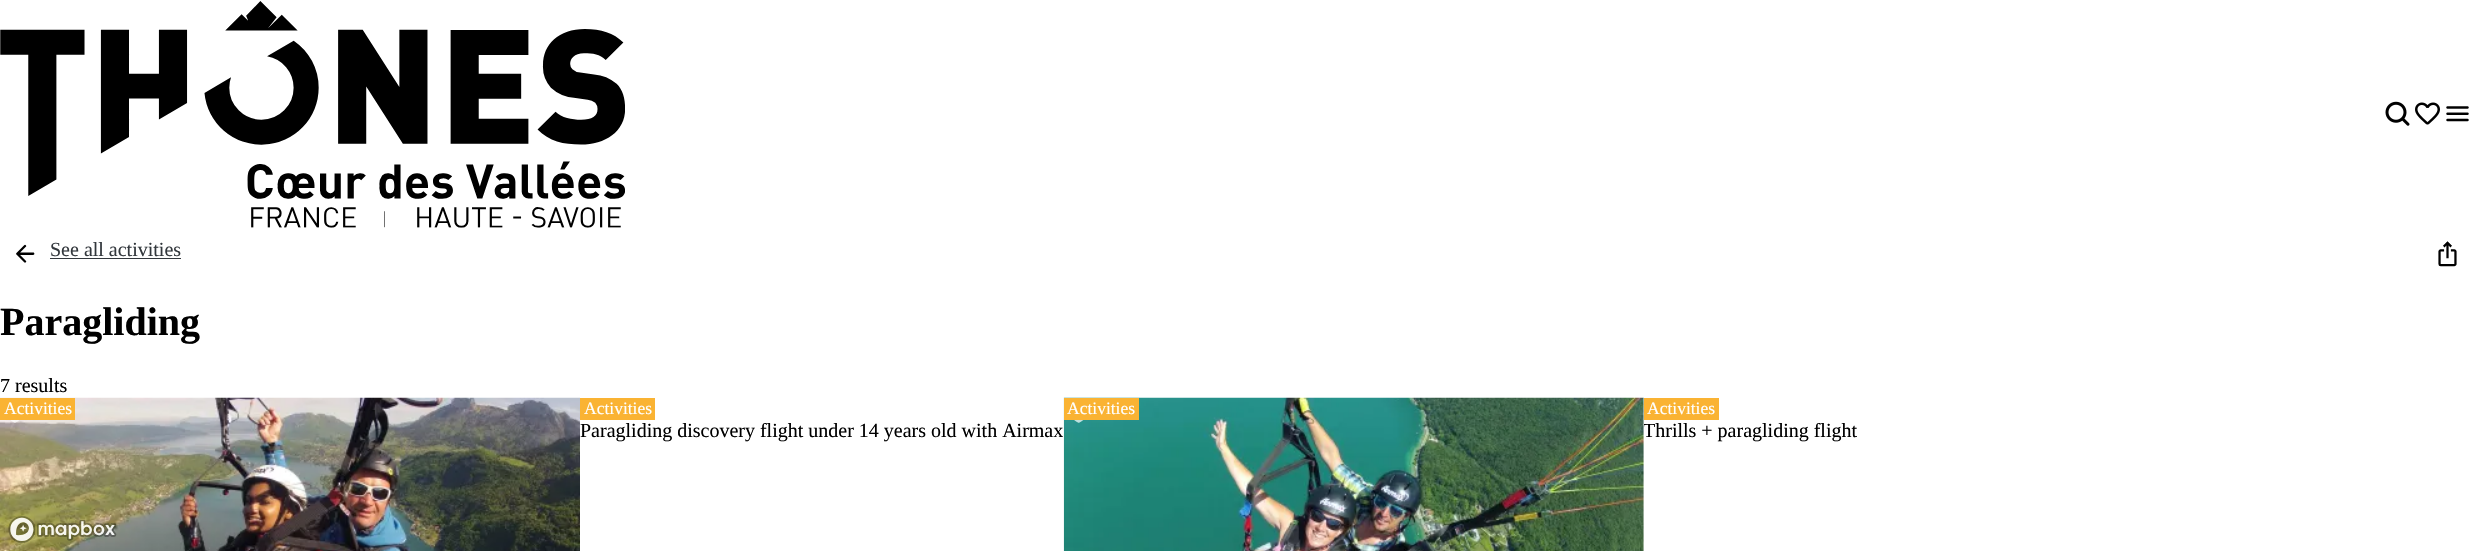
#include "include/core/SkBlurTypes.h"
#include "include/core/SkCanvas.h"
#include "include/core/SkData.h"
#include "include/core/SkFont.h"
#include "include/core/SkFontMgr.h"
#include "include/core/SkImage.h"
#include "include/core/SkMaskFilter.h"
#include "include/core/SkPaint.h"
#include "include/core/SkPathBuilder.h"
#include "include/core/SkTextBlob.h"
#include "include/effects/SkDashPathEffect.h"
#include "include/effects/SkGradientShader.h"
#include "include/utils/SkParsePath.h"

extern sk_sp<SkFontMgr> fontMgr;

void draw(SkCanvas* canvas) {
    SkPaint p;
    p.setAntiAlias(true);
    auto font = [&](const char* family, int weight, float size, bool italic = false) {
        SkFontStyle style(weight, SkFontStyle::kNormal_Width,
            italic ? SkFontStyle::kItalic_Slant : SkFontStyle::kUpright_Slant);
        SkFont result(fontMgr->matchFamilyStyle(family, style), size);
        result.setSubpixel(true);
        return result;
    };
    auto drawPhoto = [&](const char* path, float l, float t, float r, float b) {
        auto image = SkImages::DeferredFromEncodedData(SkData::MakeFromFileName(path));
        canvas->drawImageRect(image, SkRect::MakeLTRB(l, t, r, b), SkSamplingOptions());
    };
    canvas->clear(0xFFFFFFFF);
    drawPhoto("media/1.png", 0, 1, 625, 228);
    drawPhoto("media/2.png", 2385, 101, 2410, 126);
    drawPhoto("media/3.png", 2415, 102, 2440, 125);
    drawPhoto("media/4.png", 2446, 106, 2469, 122);
    drawPhoto("media/5.png", 16, 244, 35, 263);
    auto font1 = font("Liberation Serif", 400, 20);
    p.setColor(0xFF33383D);
    canvas->drawString("See all activities", 50, 256, font1, p);
    canvas->drawRect(SkRect::MakeLTRB(50, 258, 181, 259), p);
    drawPhoto("media/6.png", 2438, 241, 2457, 267);
    auto font2 = font("Liberation Serif", 700, 40);
    p.setColor(0xFF000000);
    canvas->drawString("Paragliding", 0, 335, font2, p);
    canvas->drawString("7 results", 0, 392, font1, p);
    drawPhoto("media/7.png", 0, 397, 580, 551);
    p.setColor(0xFFFAB333);
    canvas->drawRect(SkRect::MakeLTRB(0, 398, 75, 420), p);
    auto font3 = font("Liberation Serif", 400, 17.5f);
    p.setColor(0xFFFFFFFF);
    canvas->drawString("Activities", 4, 414, font3, p);
    p.setColor(0xFFFAB333);
    canvas->drawRect(SkRect::MakeLTRB(580, 398, 655, 420), p);
    p.setColor(0xFFFFFFFF);
    canvas->drawString("Activities", 584, 414, font3, p);
    p.setColor(0xFF000000);
    canvas->drawString("Paragliding discovery flight under 14 years old with Airmax", 580, 437, font1, p);
    drawPhoto("media/8.png", 10, 420, 20, 423);
    drawPhoto("media/9.png", 1063, 397, 1644, 551);
    p.setColor(0xFFFAB333);
    canvas->drawRect(SkRect::MakeLTRB(1064, 398, 1139, 420), p);
    p.setColor(0xFFFFFFFF);
    canvas->drawString("Activities", 1067, 414, font3, p);
    p.setColor(0xFFFAB333);
    canvas->drawRect(SkRect::MakeLTRB(1644, 398, 1719, 420), p);
    p.setColor(0xFFFFFFFF);
    canvas->drawString("Activities", 1647, 414, font3, p);
    canvas->save();
    canvas->clipRect(SkRect::MakeLTRB(1644, 420, 1858, 443));
    p.setColor(0xFF000000);
    canvas->drawString("Thrills + paragliding flight", 1643, 437, font1, p);
    canvas->restore();
    drawPhoto("media/10.png", 1074, 420, 1084, 423);
    drawPhoto("media/11.png", 8, 516, 117, 543);
}
